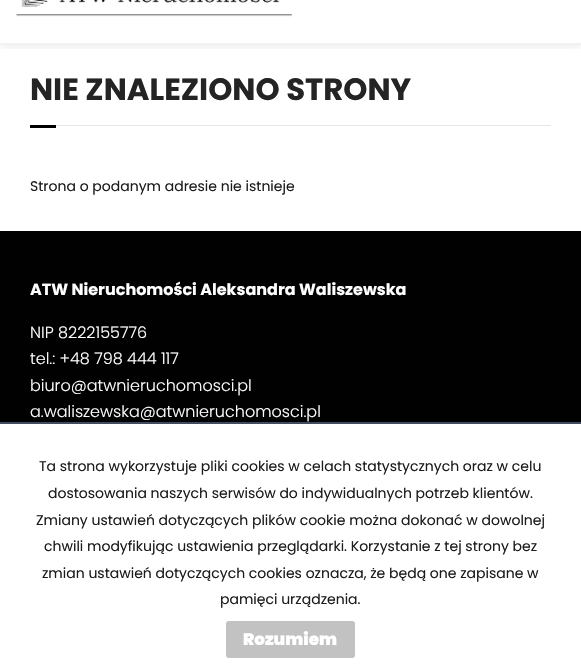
#include "include/core/SkBlurTypes.h"
#include "include/core/SkCanvas.h"
#include "include/core/SkData.h"
#include "include/core/SkFont.h"
#include "include/core/SkFontMgr.h"
#include "include/core/SkImage.h"
#include "include/core/SkMaskFilter.h"
#include "include/core/SkPaint.h"
#include "include/core/SkPathBuilder.h"
#include "include/core/SkTextBlob.h"
#include "include/effects/SkDashPathEffect.h"
#include "include/effects/SkGradientShader.h"
#include "include/utils/SkParsePath.h"

extern sk_sp<SkFontMgr> fontMgr;

void draw(SkCanvas* canvas) {
    SkPaint p;
    p.setAntiAlias(true);
    auto font = [&](const char* family, int weight, float size, bool italic = false) {
        SkFontStyle style(weight, SkFontStyle::kNormal_Width,
            italic ? SkFontStyle::kItalic_Slant : SkFontStyle::kUpright_Slant);
        SkFont result(fontMgr->matchFamilyStyle(family, style), size);
        result.setSubpixel(true);
        return result;
    };
    auto drawPhoto = [&](const char* path, float l, float t, float r, float b) {
        auto image = SkImages::DeferredFromEncodedData(SkData::MakeFromFileName(path));
        canvas->drawImageRect(image, SkRect::MakeLTRB(l, t, r, b), SkSamplingOptions());
    };
    canvas->clear(0xFFFFFFFF);
    canvas->save();
    canvas->clipRect(SkRect::MakeLTRB(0, 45, 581, 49));
    p.setColor(0x1A000000);
    p.setMaskFilter(SkMaskFilter::MakeBlur(kNormal_SkBlurStyle, 5));
    canvas->drawRect(SkRect::MakeLTRB(0, -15, 581, 45), p);
    p.setMaskFilter(nullptr);
    canvas->restore();
    p.setColor(0xFFF2F2F2);
    canvas->drawRect(SkRect::MakeLTRB(0, 43, 581, 45), p);
    drawPhoto("media/1.png", 16, 0, 292, 17);
    p.setColor(0xFFE6E6E6);
    canvas->drawRect(SkRect::MakeLTRB(56, 125, 551, 126), p);
    auto font1 = font("Poppins", 700, 30.75f);
    p.setColor(0xFF242424);
    canvas->drawString("NIE ZNALEZIONO STRONY", 30, 100, font1, p);
    p.setColor(0xFF010101);
    canvas->drawRect(SkRect::MakeLTRB(30, 125, 56, 128), p);
    auto font2 = font("Poppins", 400, 14);
    p.setColor(0xFF1E1B1B);
    canvas->drawString("Strona o podanym adresie nie istnieje", 30, 191, font2, p);
    p.setColor(0xFF010101);
    canvas->drawRect(SkRect::MakeLTRB(0, 231, 581, 422), p);
    auto font3 = font("Poppins", 700, 16);
    p.setColor(0xFFFFFFFF);
    canvas->drawString("ATW Nieruchomości Aleksandra Waliszewska", 30, 295, font3, p);
    auto font4 = font("Poppins", 300, 16);
    {
        const struct { const char* s; float x, y; } items[] = {
            {"NIP 8222155776", 30, 338},
            {"tel.: +48 798 444 117", 30, 364},
            {"biuro@atwnieruchomosci.pl", 30, 391},
            {"a.waliszewska@atwnieruchomosci.pl", 30, 417},
        };
        for (auto [s, x, y] : items) {
            canvas->drawString(s, x, y, font4, p);
        }
    }
    p.setColor(0xFF414C5E);
    canvas->drawRect(SkRect::MakeLTRB(0, 422, 581, 424), p);
    p.setColor(0xFF1E1B1B);
    {
        const struct { const char* s; float x, y; } items[] = {
            {"Ta strona wykorzystuje pliki cookies w celach statystycznych oraz w celu", 39, 471},
            {"dostosowania naszych serwisów do indywidualnych potrzeb klientów.", 48, 498},
            {"Zmiany ustawień dotyczących plików cookie można dokonać w dowolnej", 36, 525},
            {"chwili modyfikując ustawienia przeglądarki. Korzystanie z tej strony bez", 44, 551},
            {"zmian ustawień dotyczących cookies oznacza, że będą one zapisane w", 42, 578},
            {"pamięci urządzenia.", 220, 604},
        };
        for (auto [s, x, y] : items) {
            canvas->drawString(s, x, y, font2, p);
        }
    }
    p.setColor(0xFFC3C2C2);
    canvas->drawRoundRect(SkRect::MakeLTRB(227, 622, 354, 657), 2, 2, p);
    p.setStyle(SkPaint::kStroke_Style);
    p.setStrokeWidth(2);
    canvas->drawRoundRect(SkRect::MakeLTRB(227, 622, 354, 657), 2, 2, p);
    auto font5 = font("Poppins", 900, 16.75f);
    p.setStyle(SkPaint::kFill_Style);
    p.setColor(0xFFFFFFFF);
    canvas->drawString("Rozumiem", 243, 645, font5, p);
}
